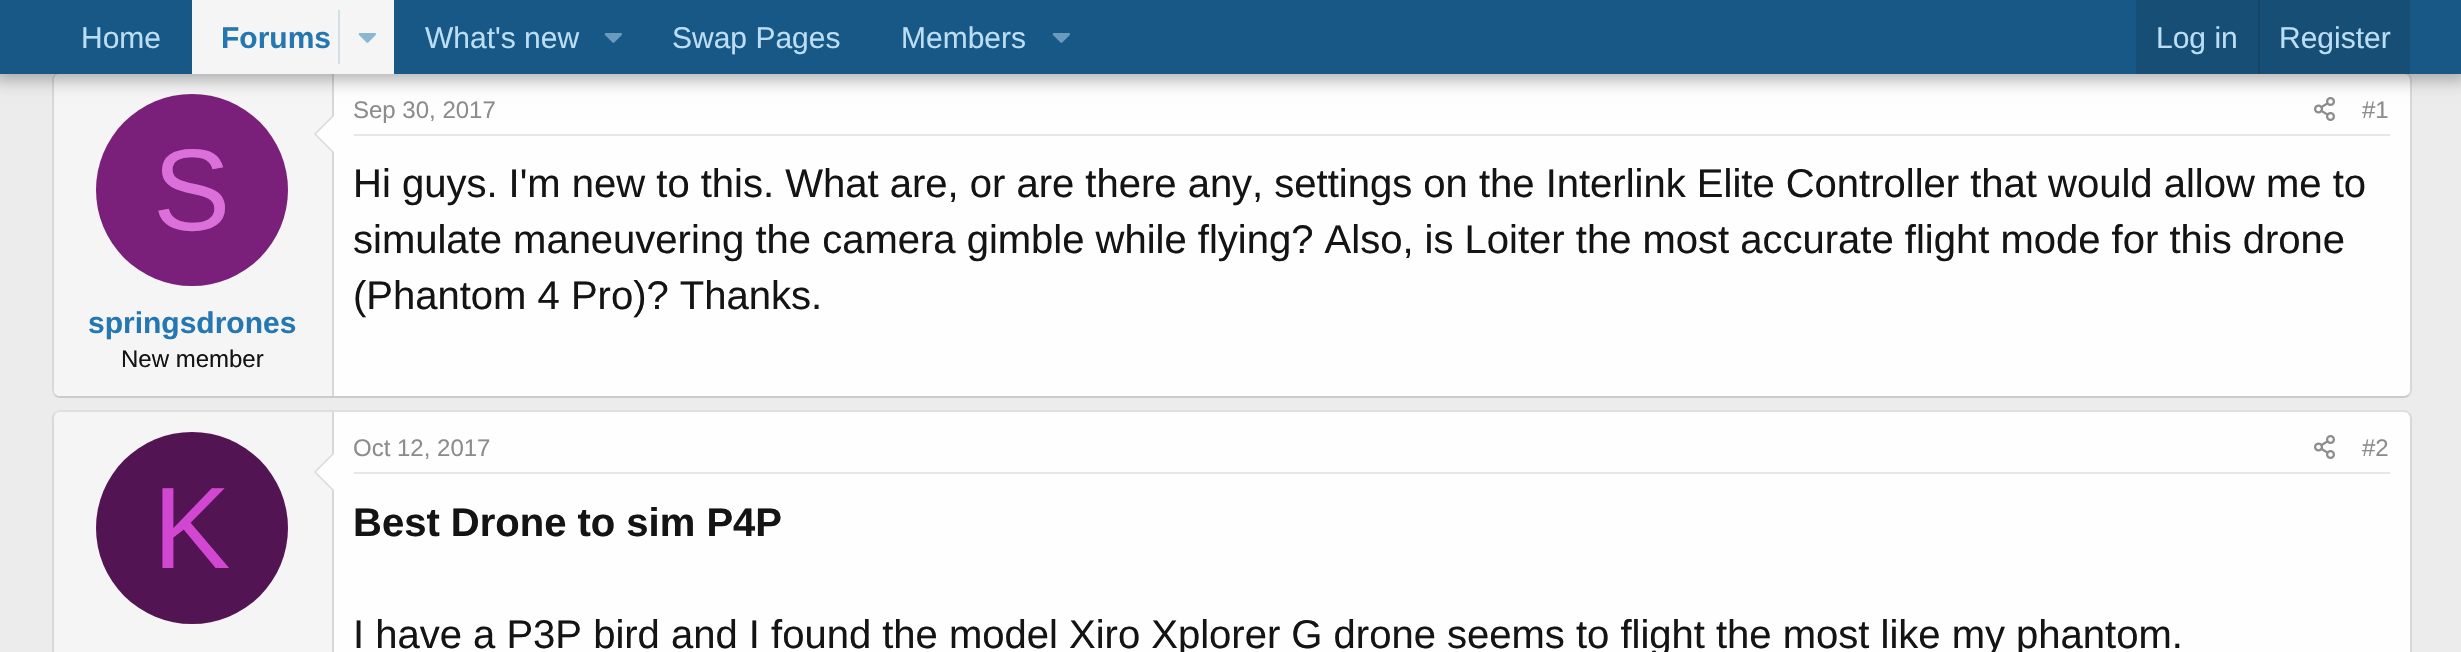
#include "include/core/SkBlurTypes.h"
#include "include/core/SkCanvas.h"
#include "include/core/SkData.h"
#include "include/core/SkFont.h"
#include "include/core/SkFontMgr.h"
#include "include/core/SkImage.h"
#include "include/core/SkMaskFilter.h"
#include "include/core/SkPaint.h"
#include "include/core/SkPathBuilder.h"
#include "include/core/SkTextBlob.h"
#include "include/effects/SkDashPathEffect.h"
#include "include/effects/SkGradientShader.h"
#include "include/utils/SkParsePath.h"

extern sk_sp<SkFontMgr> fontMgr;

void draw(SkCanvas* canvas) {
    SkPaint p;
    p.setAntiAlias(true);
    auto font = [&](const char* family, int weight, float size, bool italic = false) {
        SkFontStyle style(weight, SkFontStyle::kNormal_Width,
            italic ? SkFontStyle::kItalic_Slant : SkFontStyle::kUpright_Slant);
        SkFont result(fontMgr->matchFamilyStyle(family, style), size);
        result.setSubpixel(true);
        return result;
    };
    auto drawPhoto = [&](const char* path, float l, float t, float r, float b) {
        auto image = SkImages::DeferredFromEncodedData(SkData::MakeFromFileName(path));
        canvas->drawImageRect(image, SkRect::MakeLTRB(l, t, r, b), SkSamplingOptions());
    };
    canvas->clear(0xFFECECEC);
    p.setColor(0xFFFEFEFE);
    canvas->drawRoundRect(SkRect::MakeLTRB(52, 72, 2412, 398), 8, 8, p);
    p.setStyle(SkPaint::kStroke_Style);
    p.setStrokeWidth(2);
    p.setColor(0xFFDFDFDF);
    canvas->drawPath(SkPathBuilder().moveTo(55, 75).cubicTo(56.5f, 73.5f, 58, 73, 60, 73).lineTo(2404, 73).cubicTo(2406, 73, 2407.5f, 73.5f, 2409, 75).detach(), p);
    p.setColor(0xFFD8D8D8);
    canvas->drawPath(SkPathBuilder().moveTo(2409, 75).cubicTo(2410.5f, 76.5f, 2411, 78, 2411, 80).lineTo(2411, 390).cubicTo(2411, 392, 2410.5f, 393.5f, 2409, 395).detach(), p);
    p.setColor(0xFFCBCBCB);
    canvas->drawPath(SkPathBuilder().moveTo(2409, 395).cubicTo(2407.5f, 396.5f, 2406, 397, 2404, 397).lineTo(60, 397).cubicTo(58, 397, 56.5f, 396.5f, 55, 395).detach(), p);
    p.setColor(0xFFD8D8D8);
    canvas->drawPath(SkPathBuilder().moveTo(55, 395).cubicTo(53.5f, 393.5f, 53, 392, 53, 390).lineTo(53, 80).cubicTo(53, 78, 53.5f, 76.5f, 55, 75).detach(), p);
    p.setStyle(SkPaint::kFill_Style);
    p.setColor(0xFFF5F5F5);
    canvas->drawPath(SkPathBuilder().moveTo(60, 74).lineTo(334, 74).lineTo(334, 396).lineTo(60, 396).cubicTo(56.5f, 396, 54, 393.5f, 54, 390).lineTo(54, 80).cubicTo(54, 76.5f, 56.5f, 74, 60, 74).close().detach(), p);
    p.setColor(0xFFD8D8D8);
    canvas->drawRect(SkRect::MakeLTRB(332, 74, 334, 396), p);
    p.setColor(0xFF7A1F7A);
    canvas->drawCircle(192, 190, 96, p);
    drawPhoto("media/3.png", 2314, 97, 2335, 121);
    p.setColor(0x4D000000);
    p.setMaskFilter(SkMaskFilter::MakeBlur(kNormal_SkBlurStyle, 8));
    canvas->drawRect(SkRect::MakeLTRB(-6, -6, 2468, 80), p);
    p.setMaskFilter(nullptr);
    p.setColor(0xFF185886);
    canvas->drawRect(SkRect::MakeLTRB(0, 0, 2461, 74), p);
    auto font1 = font("Liberation Sans", 400, 30);
    p.setColor(0xFFBCDEF5);
    canvas->drawString("Home", 81, 48, font1, p);
    p.setColor(0xFFF5F5F5);
    canvas->drawRect(SkRect::MakeLTRB(192, 0, 394, 74), p);
    auto font2 = font("Liberation Sans", 700, 30);
    p.setColor(0xFF2577B1);
    canvas->drawString("Forums", 221, 48, font2, p);
    p.setColor(0xFFD1DFE9);
    canvas->drawRect(SkRect::MakeLTRB(338, 10, 340, 64), p);
    drawPhoto("media/1.png", 358, 33, 376, 43);
    p.setColor(0xFFBCDEF5);
    canvas->drawString("What's new", 425, 48, font1, p);
    drawPhoto("media/2.png", 604, 33, 622, 43);
    canvas->drawString("Swap Pages", 672, 48, font1, p);
    canvas->drawString("Members", 901, 48, font1, p);
    drawPhoto("media/2.png", 1052, 33, 1070, 43);
    p.setColor(0xFF174E75);
    canvas->drawRect(SkRect::MakeLTRB(2136, 0, 2410, 74), p);
    p.setColor(0xFFBCDEF5);
    canvas->drawString("Log in", 2156, 48, font1, p);
    p.setColor(0xFF174566);
    canvas->drawRect(SkRect::MakeLTRB(2258, 0, 2260, 74), p);
    p.setColor(0xFFBCDEF5);
    canvas->drawString("Register", 2279, 48, font1, p);
    p.setColor(0xFFD8D8D8);
    canvas->drawPath(SkPathBuilder().moveTo(334, 114).lineTo(334, 154).lineTo(314, 134).close().detach(), p);
    p.setColor(0xFFFEFEFE);
    canvas->drawPath(SkPathBuilder().moveTo(334, 116).lineTo(334, 152).lineTo(316, 134).close().detach(), p);
    auto font3 = font("Liberation Sans", 400, 116);
    p.setColor(0xFFDB70DB);
    canvas->drawString("S", 153, 230, font3, p);
    p.setColor(0xFF2577B1);
    canvas->drawString("springsdrones", 88, 333, font2, p);
    auto font4 = font("Liberation Sans", 400, 24);
    p.setColor(0xFF141414);
    canvas->drawString("New member", 121, 367, font4, p);
    p.setColor(0xFFE7E7E7);
    canvas->drawRect(SkRect::MakeLTRB(354, 134, 2390, 136), p);
    p.setColor(0xFF8C8C8C);
    canvas->drawString("Sep 30, 2017", 353, 118, font4, p);
    canvas->drawString("#1", 2362, 118, font4, p);
    auto font5 = font("Liberation Sans", 400, 40);
    p.setColor(0xFF141414);
    {
        const struct { const char* s; float x, y; } items[] = {
            {"Hi guys. I'm new to this. What are, or are there any, settings on the Interlink Elite Controller that would allow me to", 353, 197},
            {"simulate maneuvering the camera gimble while flying? Also, is Loiter the most accurate flight mode for this drone", 353, 253},
            {"(Phantom 4 Pro)? Thanks.", 353, 309},
        };
        for (auto [s, x, y] : items) {
            canvas->drawString(s, x, y, font5, p);
        }
    }
    p.setColor(0xFFFEFEFE);
    canvas->drawRoundRect(SkRect::MakeLTRB(52, 410, 2412, 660), 8, 8, p);
    p.setStyle(SkPaint::kStroke_Style);
    p.setColor(0xFFDFDFDF);
    canvas->drawPath(SkPathBuilder().moveTo(55, 413).cubicTo(56.5f, 411.5f, 58, 411, 60, 411).lineTo(2404, 411).cubicTo(2406, 411, 2407.5f, 411.5f, 2409, 413).detach(), p);
    p.setColor(0xFFD8D8D8);
    canvas->drawPath(SkPathBuilder().moveTo(2409, 413).cubicTo(2410.5f, 414.5f, 2411, 416, 2411, 418).lineTo(2411, 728).cubicTo(2411, 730, 2410.5f, 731.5f, 2409, 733).detach(), p);
    canvas->drawPath(SkPathBuilder().moveTo(55, 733).cubicTo(53.5f, 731.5f, 53, 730, 53, 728).lineTo(53, 418).cubicTo(53, 416, 53.5f, 414.5f, 55, 413).detach(), p);
    p.setStyle(SkPaint::kFill_Style);
    p.setColor(0xFFF5F5F5);
    canvas->drawPath(SkPathBuilder().moveTo(60, 412).lineTo(334, 412).lineTo(334, 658).lineTo(60, 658).cubicTo(56.5f, 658, 54, 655.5f, 54, 652).lineTo(54, 418).cubicTo(54, 414.5f, 56.5f, 412, 60, 412).close().detach(), p);
    p.setColor(0xFFD8D8D8);
    canvas->drawRect(SkRect::MakeLTRB(332, 412, 334, 652), p);
    canvas->drawPath(SkPathBuilder().moveTo(334, 452).lineTo(334, 492).lineTo(314, 472).close().detach(), p);
    p.setColor(0xFFFEFEFE);
    canvas->drawPath(SkPathBuilder().moveTo(334, 454).lineTo(334, 490).lineTo(316, 472).close().detach(), p);
    p.setColor(0xFF521452);
    canvas->drawCircle(192, 528, 96, p);
    p.setColor(0xFFD147D1);
    canvas->drawString("K", 153, 568, font3, p);
    p.setColor(0xFFE7E7E7);
    canvas->drawRect(SkRect::MakeLTRB(354, 472, 2390, 474), p);
    p.setColor(0xFF8C8C8C);
    canvas->drawString("Oct 12, 2017", 353, 456, font4, p);
    drawPhoto("media/3.png", 2314, 435, 2335, 459);
    canvas->drawString("#2", 2362, 456, font4, p);
    auto font6 = font("Liberation Sans", 700, 40);
    p.setColor(0xFF141414);
    canvas->drawString("Best Drone to sim P4P", 353, 536, font6, p);
    canvas->drawString("I have a P3P bird and I found the model Xiro Xplorer G drone seems to flight the most like my phantom.", 353, 648, font5, p);
}
